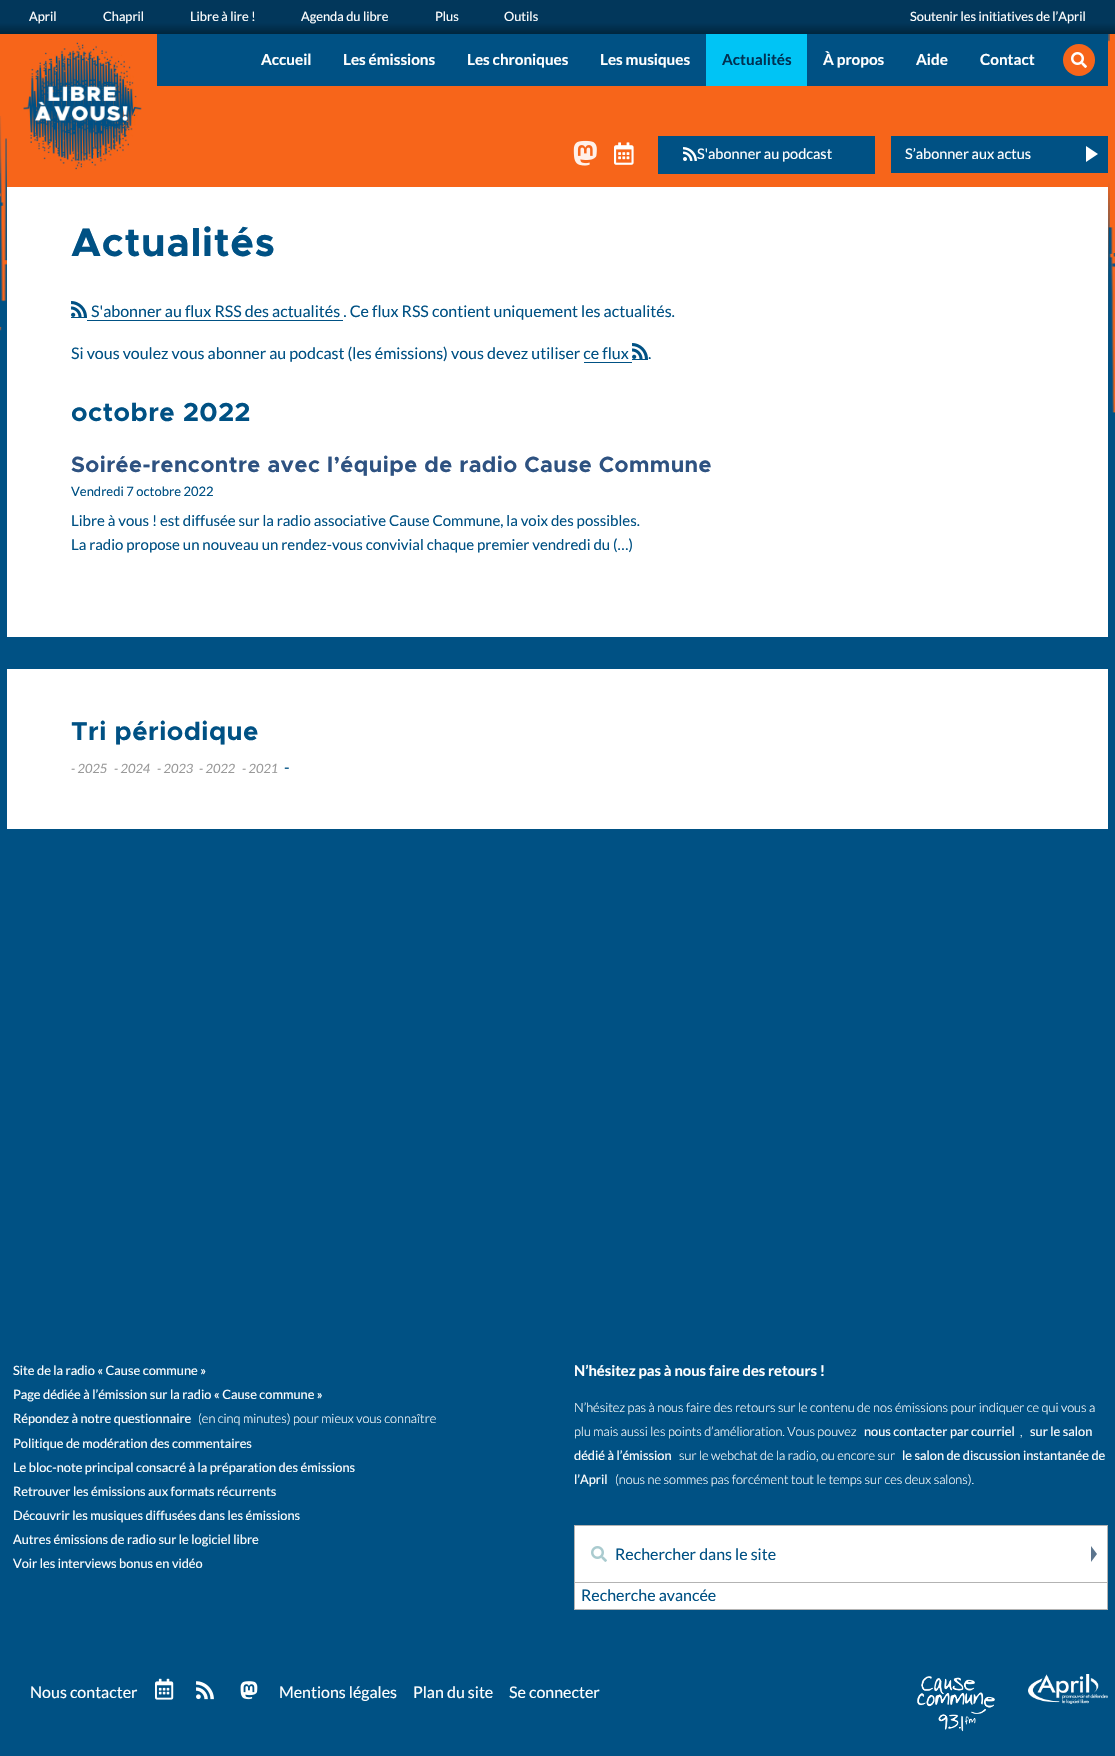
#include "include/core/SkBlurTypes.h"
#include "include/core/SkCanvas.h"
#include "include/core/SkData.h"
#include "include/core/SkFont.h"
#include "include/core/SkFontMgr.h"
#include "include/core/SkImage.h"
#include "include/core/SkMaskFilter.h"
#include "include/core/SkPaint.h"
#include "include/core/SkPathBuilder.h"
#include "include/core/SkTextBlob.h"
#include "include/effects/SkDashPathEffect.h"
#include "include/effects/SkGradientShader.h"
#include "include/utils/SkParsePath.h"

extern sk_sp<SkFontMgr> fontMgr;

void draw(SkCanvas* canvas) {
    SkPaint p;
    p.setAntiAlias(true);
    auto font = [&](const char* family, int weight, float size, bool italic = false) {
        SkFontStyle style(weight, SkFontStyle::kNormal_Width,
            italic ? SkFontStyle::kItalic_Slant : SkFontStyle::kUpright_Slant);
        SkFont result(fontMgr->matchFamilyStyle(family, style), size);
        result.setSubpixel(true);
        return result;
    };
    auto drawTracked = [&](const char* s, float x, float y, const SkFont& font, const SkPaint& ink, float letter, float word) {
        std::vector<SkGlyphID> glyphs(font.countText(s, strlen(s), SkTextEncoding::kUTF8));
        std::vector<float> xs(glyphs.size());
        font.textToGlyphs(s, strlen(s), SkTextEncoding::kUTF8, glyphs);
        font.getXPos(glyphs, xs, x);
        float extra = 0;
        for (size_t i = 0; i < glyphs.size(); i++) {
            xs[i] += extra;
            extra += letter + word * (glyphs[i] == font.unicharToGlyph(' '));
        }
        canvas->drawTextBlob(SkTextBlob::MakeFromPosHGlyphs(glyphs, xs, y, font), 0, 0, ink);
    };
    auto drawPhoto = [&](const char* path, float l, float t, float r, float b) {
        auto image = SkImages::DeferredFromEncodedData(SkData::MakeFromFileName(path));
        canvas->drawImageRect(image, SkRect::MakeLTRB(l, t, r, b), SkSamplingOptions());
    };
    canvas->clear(0xFF005184);
    drawPhoto("media/1.png", 0, 34, 1115, 413);
    {
        const SkColor colors[] = {0xFF02375B, 0xFF02375B, 0xFF00263E};
        const float stops[] = {0, 0.67f, 1};
        const SkPoint ends[] = {{558, 0}, {558, 34}};
        p.setShader(SkGradientShader::MakeLinear(ends, colors, stops, 3, SkTileMode::kClamp));
        p.setAlpha(255);
    }
    canvas->drawRect(SkRect::MakeLTRB(0, 0, 1115, 34), p);
    auto font1 = font("Lato", 400, 12.8f);
    p.setShader(nullptr);
    p.setColor(0xFFFFFFFF);
    {
        const struct { const char* s; float x, y; } items[] = {
            {"April", 29, 21},
            {"Chapril", 103, 21},
            {"Libre à lire !", 190, 21},
            {"Agenda du libre", 301, 21},
            {"Plus", 435, 21},
            {"Outils", 504, 21},
            {"Soutenir les initiatives de l’April", 910, 21},
            {"Site de la radio « Cause commune »", 13, 1375},
            {"Page dédiée à l’émission sur la radio « Cause commune »", 13, 1399},
            {"Répondez à notre questionnaire", 13, 1423},
        };
        for (auto [s, x, y] : items) {
            canvas->drawString(s, x, y, font1, p);
        }
    }
    auto font2 = font("Lato", 300, 12.8f);
    canvas->drawString("(en cinq minutes) pour mieux vous connaître", 198, 1423, font2, p);
    {
        const struct { const char* s; float x, y; } items[] = {
            {"Politique de modération des commentaires", 13, 1448},
            {"Le bloc-note principal consacré à la préparation des émissions", 13, 1472},
            {"Retrouver les émissions aux formats récurrents", 13, 1496},
            {"Découvrir les musiques diffusées dans les émissions", 13, 1520},
            {"Autres émissions de radio sur le logiciel libre", 13, 1544},
            {"Voir les interviews bonus en vidéo", 13, 1568},
        };
        for (auto [s, x, y] : items) {
            canvas->drawString(s, x, y, font1, p);
        }
    }
    auto font3 = font("Lato", 700, 14.75f);
    canvas->drawString("N’hésitez pas à nous faire des retours !", 574, 1376, font3, p);
    canvas->drawString("N’hésitez pas à nous faire des retours sur le contenu de nos émissions pour indiquer ce qui vous a", 574, 1412, font2, p);
    canvas->drawString("plu mais aussi les points d’amélioration. Vous pouvez", 574, 1436, font2, p);
    canvas->drawString("nous contacter par courriel", 864, 1436, font1, p);
    canvas->drawString(",", 1020, 1436, font2, p);
    canvas->drawString("sur le salon", 1030, 1436, font1, p);
    canvas->drawString("dédié à l’émission", 574, 1460, font1, p);
    canvas->drawString("sur le webchat de la radio, ou encore sur", 679, 1460, font2, p);
    canvas->drawString("le salon de discussion instantanée de", 902, 1460, font1, p);
    canvas->drawString("l’April", 574, 1484, font1, p);
    canvas->drawString("(nous ne sommes pas forcément tout le temps sur ces deux salons).", 615, 1484, font2, p);
    canvas->drawRect(SkRect::MakeLTRB(574.5f, 1525.5f, 1107.5f, 1582.5f), p);
    p.setStyle(SkPaint::kStroke_Style);
    p.setStrokeWidth(1);
    p.setColor(0xFFB3B3B3);
    canvas->drawRect(SkRect::MakeLTRB(574.5f, 1525.5f, 1107.5f, 1582.5f), p);
    drawPhoto("media/2.png", 591, 1546, 607, 1562);
    auto font4 = font("Lato", 400, 16);
    p.setStyle(SkPaint::kFill_Style);
    p.setColor(0xFF005184);
    canvas->drawString("Rechercher dans le site", 615, 1560, font4, p);
    p.setColor(0xFF5B758E);
    canvas->drawPath(SkPathBuilder().moveTo(1091, 1562).lineTo(1091, 1546).lineTo(1097, 1554).close().detach(), p);
    {
        const struct { float l, t, r, b; SkColor color; } items[] = {
            {575, 1583, 1107, 1609, 0xFFFFFFFF},
            {1107, 1583, 1108, 1610, 0xFFB3B3B3},
            {574, 1609, 1108, 1610, 0xFFB3B3B3},
            {574, 1583, 575, 1610, 0xFFB3B3B3},
        };
        for (auto [l, t, r, b, color] : items) {
            p.setColor(color);
            canvas->drawRect(SkRect::MakeLTRB(l, t, r, b), p);
        }
    }
    p.setColor(0xFF005184);
    canvas->drawString("Recherche avancée", 581, 1601, font4, p);
    p.setColor(0xFFFFFFFF);
    canvas->drawString("Nous contacter", 30, 1698, font4, p);
    drawPhoto("media/3.png", 155, 1678, 174, 1700);
    drawPhoto("media/4.png", 196, 1681, 214, 1700);
    drawPhoto("media/5.png", 240, 1681, 258, 1700);
    {
        const struct { const char* s; float x, y; } items[] = {
            {"Mentions légales", 279, 1698},
            {"Plan du site", 413, 1698},
            {"Se connecter", 509, 1698},
        };
        for (auto [s, x, y] : items) {
            canvas->drawString(s, x, y, font4, p);
        }
    }
    drawPhoto("media/6.png", 917, 1676, 995, 1732);
    drawPhoto("media/7.png", 1028, 1674, 1108, 1704);
    p.setColor(0xFFF7651A);
    canvas->drawRect(SkRect::MakeLTRB(7, 34, 1108, 187), p);
    drawPhoto("media/8.png", 23, 42, 142, 170);
    p.setColor(0xFF005184);
    canvas->drawRect(SkRect::MakeLTRB(157, 34, 1108, 86), p);
    auto font5 = font("Lato", 700, 15.25f);
    p.setColor(0xFFFFFFFF);
    {
        const struct { const char* s; float x, y; } items[] = {
            {"Accueil", 261, 65},
            {"Les émissions", 343, 65},
            {"Les chroniques", 467, 65},
            {"Les musiques", 600, 65},
        };
        for (auto [s, x, y] : items) {
            canvas->drawString(s, x, y, font5, p);
        }
    }
    p.setColor(0xFF00C4F5);
    canvas->drawRect(SkRect::MakeLTRB(706, 34, 807, 86), p);
    p.setColor(0xFF003152);
    canvas->drawString("Actualités", 722, 65, font5, p);
    p.setColor(0xFFFFFFFF);
    {
        const struct { const char* s; float x, y; } items[] = {
            {"À propos", 823, 65},
            {"Aide", 916, 65},
            {"Contact", 980, 65},
        };
        for (auto [s, x, y] : items) {
            canvas->drawString(s, x, y, font5, p);
        }
    }
    p.setColor(0xFFF7651A);
    canvas->drawCircle(1079, 60, 16, p);
    drawPhoto("media/9.png", 1071, 52, 1087, 68);
    drawPhoto("media/10.png", 573, 140, 597, 166);
    drawPhoto("media/11.png", 614, 142, 634, 165);
    p.setColor(0xFF005184);
    canvas->drawRect(SkRect::MakeLTRB(658, 136, 875, 174), p);
    drawPhoto("media/12.png", 683, 147, 697, 161);
    auto font6 = font("Lato", 400, 14.5f);
    p.setColor(0xFFFFFFFF);
    canvas->drawString("S'abonner au podcast", 697, 159, font6, p);
    p.setColor(0xFF005184);
    canvas->drawRect(SkRect::MakeLTRB(891, 136, 1108, 173), p);
    p.setColor(0xFFFFFFFF);
    canvas->drawString("S’abonner aux actus", 905, 159, font6, p);
    canvas->drawPath(SkPathBuilder().moveTo(1086, 162).lineTo(1086, 146).lineTo(1098, 154).close().detach(), p);
    canvas->drawRect(SkRect::MakeLTRB(7, 187, 1108, 637), p);
    auto font7 = font("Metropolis", 700, 40);
    p.setColor(0xFF005184);
    drawTracked("Actualités", 71, 256, font7, p, 0.75f, 0);
    drawPhoto("media/13.png", 71, 301, 87, 317);
    canvas->drawString("S'abonner au flux RSS des actualités . Ce flux RSS contient uniquement les actualités.", 91, 317, font4, p);
    canvas->drawRect(SkRect::MakeLTRB(71, 317, 87, 318), p);
    canvas->drawRect(SkRect::MakeLTRB(87, 320, 343, 321), p);
    canvas->drawString("Si vous voulez vous abonner au podcast (les émissions) vous devez utiliser ce flux", 71, 359, font4, p);
    drawPhoto("media/13.png", 632, 343, 648, 359);
    canvas->drawString(".", 648, 359, font4, p);
    canvas->drawRect(SkRect::MakeLTRB(632, 359, 648, 360), p);
    canvas->drawRect(SkRect::MakeLTRB(584, 362, 632, 363), p);
    auto font8 = font("Metropolis", 700, 26);
    drawTracked("octobre 2022", 71, 421, font8, p, 0.5f, 0);
    auto font9 = font("Metropolis", 700, 22);
    p.setColor(0xFF2E5281);
    drawTracked("Soirée-rencontre avec l’équipe de radio Cause Commune", 71, 472, font9, p, 0.45f, 0);
    auto font10 = font("Lato", 400, 13);
    p.setColor(0xFF005184);
    canvas->drawString("Vendredi 7 octobre 2022", 71, 496, font10, p);
    auto font11 = font("Lato", 400, 15);
    canvas->drawString("Libre à vous ! est diffusée sur la radio associative Cause Commune, la voix des possibles.", 71, 526, font11, p);
    canvas->drawString("La radio propose un nouveau un rendez-vous convivial chaque premier vendredi du (…)", 71, 550, font11, p);
    p.setColor(0xFFFFFFFF);
    canvas->drawRect(SkRect::MakeLTRB(7, 669, 1108, 829), p);
    p.setColor(0xFF005184);
    drawTracked("Tri périodique", 71, 740, font8, p, 0.5f, 0);
    auto font12 = font("Lato", 400, 12.8f, true);
    p.setColor(0xFF999999);
    {
        const struct { const char* s; float x, y; } items[] = {
            {"- 2025", 71, 773},
            {"- 2024", 114, 773},
            {"- 2023", 157, 773},
            {"- 2022", 199, 773},
            {"- 2021", 242, 773},
        };
        for (auto [s, x, y] : items) {
            canvas->drawString(s, x, y, font12, p);
        }
    }
    p.setColor(0xFF005184);
    canvas->drawString("-", 284, 773, font4, p);
}
